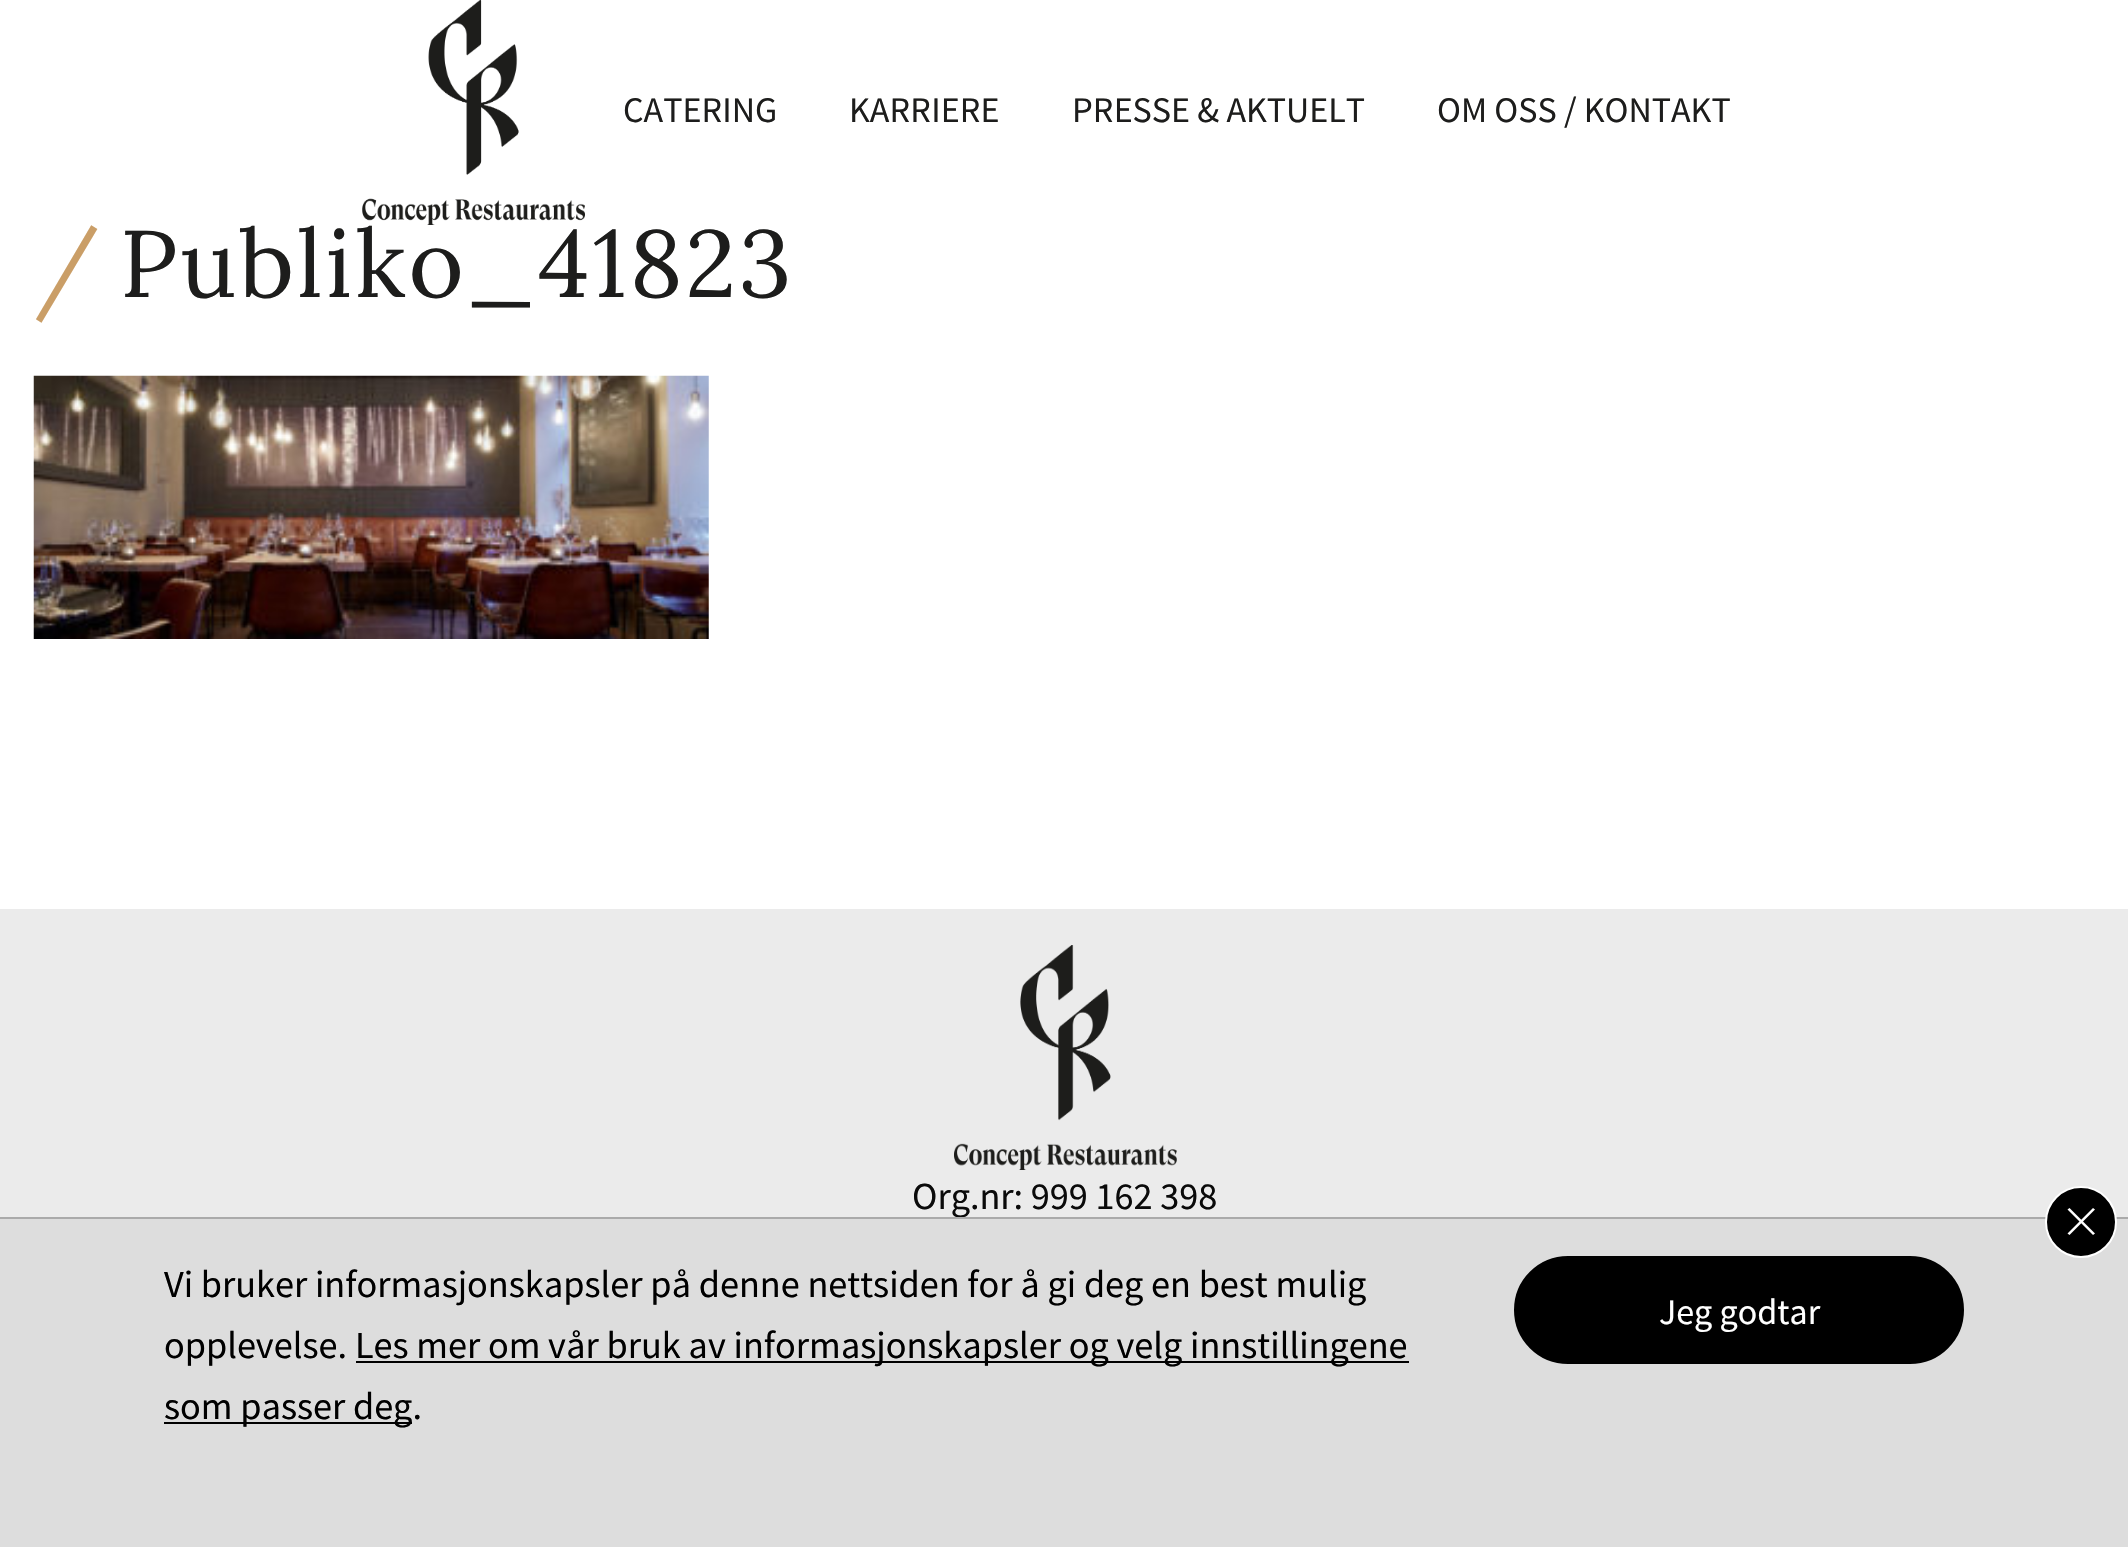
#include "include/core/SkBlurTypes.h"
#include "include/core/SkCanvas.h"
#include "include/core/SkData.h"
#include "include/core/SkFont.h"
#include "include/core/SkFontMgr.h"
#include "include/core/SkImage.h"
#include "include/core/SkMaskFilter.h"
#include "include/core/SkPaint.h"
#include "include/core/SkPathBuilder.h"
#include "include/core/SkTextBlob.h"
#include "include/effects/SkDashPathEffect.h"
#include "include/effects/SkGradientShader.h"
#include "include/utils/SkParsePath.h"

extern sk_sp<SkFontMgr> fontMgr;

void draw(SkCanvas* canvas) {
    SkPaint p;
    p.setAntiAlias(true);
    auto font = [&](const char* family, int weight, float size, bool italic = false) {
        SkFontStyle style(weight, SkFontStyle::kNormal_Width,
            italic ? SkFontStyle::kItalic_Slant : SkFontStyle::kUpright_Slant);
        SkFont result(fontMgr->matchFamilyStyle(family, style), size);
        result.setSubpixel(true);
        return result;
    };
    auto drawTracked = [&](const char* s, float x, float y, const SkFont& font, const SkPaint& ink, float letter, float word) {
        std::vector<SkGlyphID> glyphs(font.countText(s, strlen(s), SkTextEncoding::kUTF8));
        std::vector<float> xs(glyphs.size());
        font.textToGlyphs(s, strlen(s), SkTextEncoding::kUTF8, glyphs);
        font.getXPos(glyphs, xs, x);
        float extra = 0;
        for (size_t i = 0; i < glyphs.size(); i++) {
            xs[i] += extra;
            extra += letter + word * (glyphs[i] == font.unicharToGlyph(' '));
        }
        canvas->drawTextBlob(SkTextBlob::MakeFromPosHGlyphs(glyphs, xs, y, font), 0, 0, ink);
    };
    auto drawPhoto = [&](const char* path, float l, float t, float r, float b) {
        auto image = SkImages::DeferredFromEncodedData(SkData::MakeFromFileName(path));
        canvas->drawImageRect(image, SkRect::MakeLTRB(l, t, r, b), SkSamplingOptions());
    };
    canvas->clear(0xFFFFFFFF);
    drawPhoto("media/1.png", 362, 0, 585, 225);
    auto font1 = font("Source Sans Pro", 400, 36);
    p.setColor(0xFF1D1D1C);
    {
        const struct { const char* s; float x, y; } items[] = {
            {"CATERING", 623, 122},
            {"KARRIERE", 849, 122},
            {"PRESSE & AKTUELT", 1072, 122},
            {"OM OSS / KONTAKT", 1437, 122},
        };
        for (auto [s, x, y] : items) {
            canvas->drawString(s, x, y, font1, p);
        }
    }
    auto font2 = font("Lora", 400, 94.5f);
    p.setColor(0xFFCA9E67);
    drawTracked("/", 34, 297, font2, p, 2.8f, 0);
    p.setColor(0xFF1D1D1C);
    drawTracked("Publiko_41823", 120, 297, font2, p, 2.8f, 0);
    drawPhoto("media/2.png", 33, 375, 709, 639);
    p.setColor(0xFFEBEBEB);
    canvas->drawRect(SkRect::MakeLTRB(0, 909, 2128, 1217), p);
    drawPhoto("media/3.png", 954, 945, 1177, 1170);
    auto font3 = font("Source Sans Pro", 400, 38.25f);
    p.setColor(0xFF0A0A0A);
    canvas->drawString("Org.nr: 999 162 398", 912, 1209, font3, p);
    p.setColor(0xFFDDDDDD);
    canvas->drawRect(SkRect::MakeLTRB(0, 1219, 2128, 1547), p);
    p.setColor(0xFFAAAAAA);
    canvas->drawRect(SkRect::MakeLTRB(0, 1217, 2128, 1219), p);
    p.setColor(0xFF000000);
    canvas->drawCircle(2081, 1222, 35, p);
    p.setStyle(SkPaint::kStroke_Style);
    p.setStrokeWidth(2);
    p.setColor(0xFFFFFFFF);
    canvas->drawCircle(2081, 1222, 35, p);
    p.setStyle(SkPaint::kFill_Style);
    canvas->drawPath(SkPathBuilder().moveTo(2067.5f, 1233.5f).lineTo(2093, 1208).lineTo(2095, 1209.5f).lineTo(2069.5f, 1235).close().detach(), p);
    canvas->drawPath(SkPathBuilder().moveTo(2069.5f, 1208).lineTo(2095, 1233.5f).lineTo(2093, 1235).lineTo(2067.5f, 1209.5f).close().detach(), p);
    p.setColor(0xFF000000);
    canvas->drawString("Vi bruker informasjonskapsler på denne nettsiden for å gi deg en best mulig", 164, 1297, font3, p);
    canvas->drawString("opplevelse.", 164, 1358, font3, p);
    canvas->drawRect(SkRect::MakeLTRB(356, 1361, 1409, 1363), p);
    canvas->drawString("Les mer om vår bruk av informasjonskapsler og velg innstillingene", 355, 1358, font3, p);
    canvas->drawRect(SkRect::MakeLTRB(164, 1422, 412, 1424), p);
    canvas->drawString("som passer deg.", 164, 1419, font3, p);
    canvas->drawRoundRect(SkRect::MakeLTRB(1515, 1257, 1963, 1363), 53, 53, p);
    p.setStyle(SkPaint::kStroke_Style);
    canvas->drawRoundRect(SkRect::MakeLTRB(1515, 1257, 1963, 1363), 53, 53, p);
    p.setStyle(SkPaint::kFill_Style);
    p.setColor(0xFFFFFFFF);
    canvas->drawString("Jeg godtar", 1659, 1324, font1, p);
}
